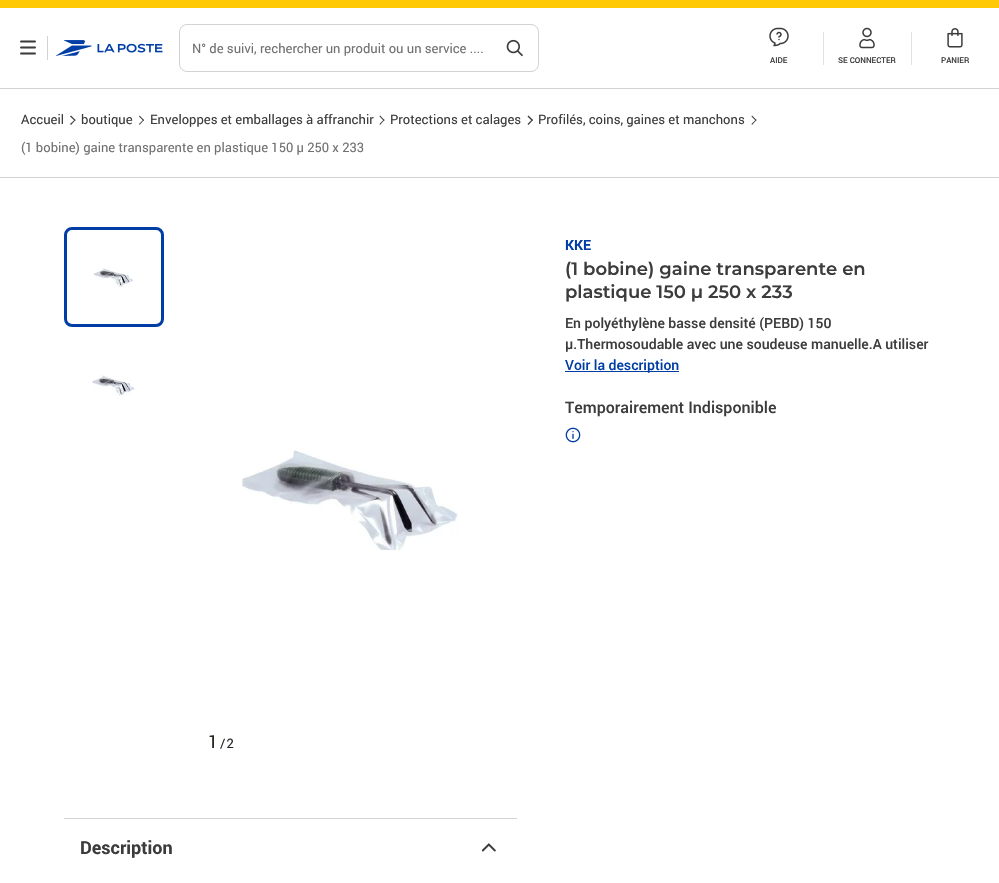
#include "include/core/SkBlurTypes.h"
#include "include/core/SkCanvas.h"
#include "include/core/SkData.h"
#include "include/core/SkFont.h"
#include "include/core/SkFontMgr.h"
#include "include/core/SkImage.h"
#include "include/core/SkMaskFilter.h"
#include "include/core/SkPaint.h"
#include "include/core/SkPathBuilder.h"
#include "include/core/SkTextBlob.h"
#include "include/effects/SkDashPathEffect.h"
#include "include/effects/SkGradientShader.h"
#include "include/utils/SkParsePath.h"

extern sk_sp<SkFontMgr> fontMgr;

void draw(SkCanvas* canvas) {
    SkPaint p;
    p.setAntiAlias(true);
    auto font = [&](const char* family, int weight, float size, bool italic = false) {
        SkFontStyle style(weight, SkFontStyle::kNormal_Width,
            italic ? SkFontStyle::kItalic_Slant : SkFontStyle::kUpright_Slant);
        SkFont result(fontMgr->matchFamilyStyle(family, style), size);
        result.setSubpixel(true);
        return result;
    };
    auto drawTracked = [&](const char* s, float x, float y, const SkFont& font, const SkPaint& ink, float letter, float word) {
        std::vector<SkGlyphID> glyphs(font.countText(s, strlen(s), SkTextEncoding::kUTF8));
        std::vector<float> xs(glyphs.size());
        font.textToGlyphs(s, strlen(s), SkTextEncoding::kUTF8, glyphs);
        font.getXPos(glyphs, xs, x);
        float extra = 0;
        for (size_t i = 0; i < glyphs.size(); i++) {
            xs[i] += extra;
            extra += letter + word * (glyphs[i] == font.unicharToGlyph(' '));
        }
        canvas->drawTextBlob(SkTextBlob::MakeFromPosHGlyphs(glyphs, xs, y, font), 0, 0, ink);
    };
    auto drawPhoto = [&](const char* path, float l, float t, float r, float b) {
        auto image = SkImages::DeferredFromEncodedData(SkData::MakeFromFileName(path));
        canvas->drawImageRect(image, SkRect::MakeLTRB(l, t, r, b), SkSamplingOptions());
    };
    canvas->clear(0xFFFFFFFF);
    p.setColor(0xFFFFC905);
    canvas->drawRect(SkRect::MakeLTRB(0, 0, 999, 8), p);
    p.setColor(0xFFD2D2D1);
    canvas->drawRect(SkRect::MakeLTRB(0, 88, 999, 89), p);
    drawPhoto("media/1.png", 20, 40, 36, 55);
    canvas->drawRect(SkRect::MakeLTRB(47, 36, 48, 60), p);
    drawPhoto("media/2.png", 56, 40, 163, 56);
    p.setStyle(SkPaint::kStroke_Style);
    p.setStrokeWidth(1);
    canvas->drawRoundRect(SkRect::MakeLTRB(179.5f, 24.5f, 538.5f, 71.5f), 7.5f, 7.5f, p);
    auto font1 = font("Roboto", 400, 13);
    p.setStyle(SkPaint::kFill_Style);
    p.setColor(0xFF717171);
    canvas->drawString("N° de suivi, rechercher un produit ou un service ....", 192, 53, font1, p);
    drawPhoto("media/3.png", 506, 39, 523, 57);
    drawPhoto("media/4.png", 769, 27, 789, 47);
    auto font2 = font("Roboto", 500, 8);
    p.setColor(0xFF3C3C3C);
    canvas->drawString("AIDE", 770, 63, font2, p);
    p.setColor(0xFFE1E1E1);
    canvas->drawRect(SkRect::MakeLTRB(823, 32, 824, 65), p);
    drawPhoto("media/5.png", 859, 27, 875, 49);
    p.setColor(0xFF3C3C3C);
    canvas->drawString("SE CONNECTER", 838, 63, font2, p);
    p.setColor(0xFFE1E1E1);
    canvas->drawRect(SkRect::MakeLTRB(911, 32, 912, 65), p);
    drawPhoto("media/6.png", 947, 28, 963, 48);
    p.setColor(0xFF3C3C3C);
    canvas->drawString("PANIER", 941, 63, font2, p);
    p.setColor(0xFFD2D2D1);
    canvas->drawRect(SkRect::MakeLTRB(0, 177, 999, 178), p);
    p.setColor(0xFF3C3C3C);
    canvas->drawString("Accueil", 21, 124, font1, p);
    canvas->drawPath(SkPathBuilder().moveTo(71, 115.5f).lineTo(75.5f, 120).lineTo(75, 121).lineTo(70, 116.5f).close().detach(), p);
    canvas->drawPath(SkPathBuilder().moveTo(75, 119.5f).lineTo(75.5f, 120).lineTo(71, 125).lineTo(70, 124).close().detach(), p);
    canvas->drawString("boutique", 81, 124, font1, p);
    canvas->drawPath(SkPathBuilder().moveTo(139.5f, 115.5f).lineTo(144, 120).lineTo(143.5f, 121).lineTo(139, 116.5f).close().detach(), p);
    canvas->drawPath(SkPathBuilder().moveTo(143.5f, 119.5f).lineTo(144, 120).lineTo(139.5f, 125).lineTo(139, 124).close().detach(), p);
    canvas->drawString("Enveloppes et emballages à affranchir", 150, 124, font1, p);
    canvas->drawPath(SkPathBuilder().moveTo(380, 115.5f).lineTo(384.5f, 120).lineTo(384, 121).lineTo(379.5f, 116.5f).close().detach(), p);
    canvas->drawPath(SkPathBuilder().moveTo(384, 119.5f).lineTo(384.5f, 120).lineTo(380, 125).lineTo(379.5f, 124).close().detach(), p);
    canvas->drawString("Protections et calages", 390, 124, font1, p);
    canvas->drawPath(SkPathBuilder().moveTo(528.5f, 115.5f).lineTo(533, 120).lineTo(532, 121).lineTo(527.5f, 116.5f).close().detach(), p);
    canvas->drawPath(SkPathBuilder().moveTo(532, 119.5f).lineTo(533, 120).lineTo(528.5f, 125).lineTo(527.5f, 124).close().detach(), p);
    canvas->drawString("Profilés, coins, gaines et manchons", 538, 124, font1, p);
    canvas->drawPath(SkPathBuilder().moveTo(752, 115.5f).lineTo(756.5f, 120).lineTo(756, 121).lineTo(751.5f, 116.5f).close().detach(), p);
    canvas->drawPath(SkPathBuilder().moveTo(756, 119.5f).lineTo(756.5f, 120).lineTo(752, 125).lineTo(751.5f, 124).close().detach(), p);
    p.setColor(0xFF717171);
    canvas->drawString("(1 bobine) gaine transparente en plastique 150 µ 250 x 233", 21, 152, font1, p);
    auto font3 = font("Roboto", 700, 14);
    p.setColor(0xFF003DA5);
    canvas->drawString("KKE", 565, 250, font3, p);
    auto font4 = font("Montserrat", 600, 18);
    p.setColor(0xFF3C3C3C);
    canvas->drawString("(1 bobine) gaine transparente en", 565, 275, font4, p);
    canvas->drawString("plastique 150 µ 250 x 233", 565, 298, font4, p);
    auto font5 = font("Roboto", 500, 14);
    canvas->drawString("En polyéthylène basse densité (PEBD) 150", 565, 328, font5, p);
    canvas->drawString("µ.Thermosoudable avec une soudeuse manuelle.A utiliser", 565, 349, font5, p);
    p.setColor(0xFF003DA5);
    canvas->drawRect(SkRect::MakeLTRB(565, 371, 679, 372), p);
    canvas->drawString("Voir la description", 565, 370, font5, p);
    auto font6 = font("Roboto", 500, 16);
    p.setColor(0xFF3C3C3C);
    canvas->drawString("Temporairement Indisponible", 565, 413, font6, p);
    drawPhoto("media/7.png", 565, 427, 581, 443);
    p.setStyle(SkPaint::kStroke_Style);
    p.setStrokeWidth(3);
    p.setColor(0xFF003DA5);
    canvas->drawRoundRect(SkRect::MakeLTRB(65.5f, 228.5f, 162.5f, 325.5f), 6.5f, 6.5f, p);
    drawPhoto("media/8.png", 94, 267, 134, 287);
    drawPhoto("media/9.png", 92, 375, 135, 396);
    drawPhoto("media/10.png", 242, 450, 458, 551);
    auto font7 = font("Roboto", 400, 18);
    p.setStyle(SkPaint::kFill_Style);
    p.setColor(0xFF282824);
    drawTracked("1", 208, 748, font7, p, 2, 0);
    drawTracked("/2", 220, 748, font1, p, 1, 0);
    p.setColor(0xFFD2D2D1);
    canvas->drawRect(SkRect::MakeLTRB(64, 818, 517, 819), p);
    auto font8 = font("Roboto", 700, 18);
    p.setColor(0xFF3C3C3C);
    canvas->drawString("Description", 80, 854, font8, p);
    drawPhoto("media/11.png", 481, 843, 496, 852);
}
